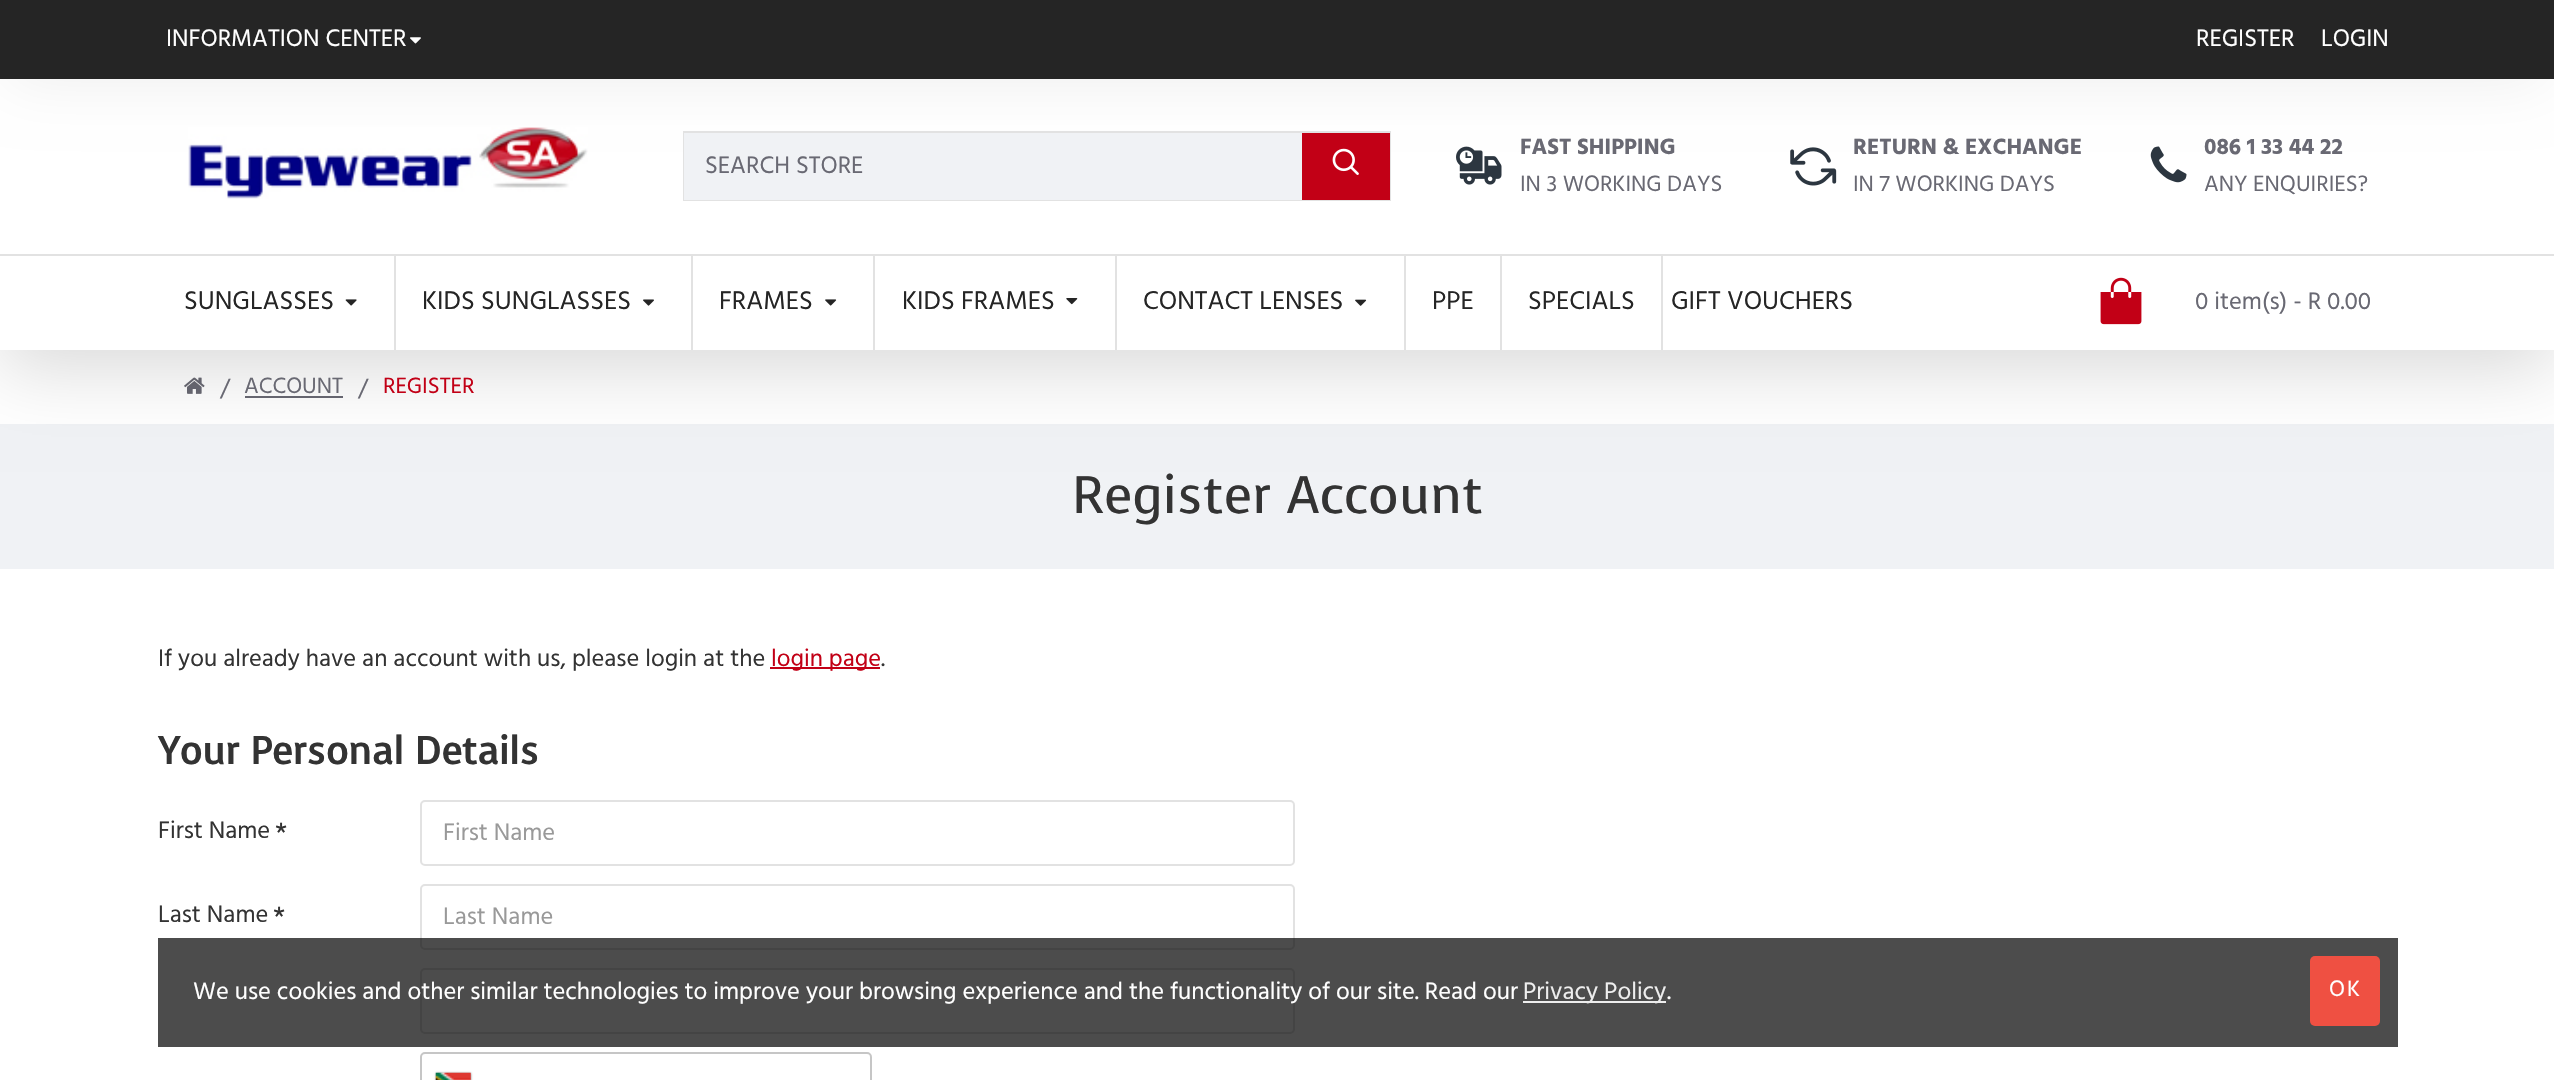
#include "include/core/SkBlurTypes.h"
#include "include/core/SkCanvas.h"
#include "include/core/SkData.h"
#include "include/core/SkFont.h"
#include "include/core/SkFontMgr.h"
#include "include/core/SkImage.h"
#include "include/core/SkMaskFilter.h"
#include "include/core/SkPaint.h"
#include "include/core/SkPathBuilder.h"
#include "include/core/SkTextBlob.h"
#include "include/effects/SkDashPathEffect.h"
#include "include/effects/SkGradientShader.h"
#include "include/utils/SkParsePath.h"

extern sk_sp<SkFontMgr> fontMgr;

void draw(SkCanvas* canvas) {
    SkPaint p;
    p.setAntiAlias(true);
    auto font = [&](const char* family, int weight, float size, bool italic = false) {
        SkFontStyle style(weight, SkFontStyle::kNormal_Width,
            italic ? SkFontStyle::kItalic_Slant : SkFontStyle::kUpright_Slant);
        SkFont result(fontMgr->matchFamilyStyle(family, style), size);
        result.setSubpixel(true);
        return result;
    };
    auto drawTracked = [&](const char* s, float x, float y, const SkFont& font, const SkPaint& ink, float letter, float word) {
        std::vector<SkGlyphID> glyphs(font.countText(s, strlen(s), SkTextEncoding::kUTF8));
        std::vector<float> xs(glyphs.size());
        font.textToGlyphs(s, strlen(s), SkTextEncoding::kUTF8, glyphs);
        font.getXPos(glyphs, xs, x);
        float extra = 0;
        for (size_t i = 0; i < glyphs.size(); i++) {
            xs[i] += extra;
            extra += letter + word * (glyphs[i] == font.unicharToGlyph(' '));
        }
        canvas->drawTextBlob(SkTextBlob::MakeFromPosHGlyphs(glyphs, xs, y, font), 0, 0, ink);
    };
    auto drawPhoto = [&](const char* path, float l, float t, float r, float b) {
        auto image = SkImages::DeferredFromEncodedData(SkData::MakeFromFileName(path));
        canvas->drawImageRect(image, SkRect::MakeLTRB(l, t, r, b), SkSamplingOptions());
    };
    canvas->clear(0xFFFFFFFF);
    drawPhoto("media/13.png", 184, 377, 205, 394);
    p.setColor(0xFF696973);
    canvas->drawRect(SkRect::MakeLTRB(245, 396, 343, 398), p);
    p.setColor(0xFFF0F2F5);
    canvas->drawRect(SkRect::MakeLTRB(0, 424, 2554, 569), p);
    p.setColor(0x26000000);
    p.setMaskFilter(SkMaskFilter::MakeBlur(kNormal_SkBlurStyle, 35));
    canvas->drawRect(SkRect::MakeLTRB(0, 18, 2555, 368), p);
    p.setMaskFilter(nullptr);
    p.setColor(0xFFFFFFFF);
    canvas->drawRect(SkRect::MakeLTRB(0, 79, 2554, 350), p);
    p.setColor(0x12000000);
    p.setMaskFilter(SkMaskFilter::MakeBlur(kNormal_SkBlurStyle, 30.5f));
    canvas->drawRect(SkRect::MakeLTRB(9, 18, 2546, 79), p);
    p.setMaskFilter(nullptr);
    p.setColor(0xFF252525);
    canvas->drawRect(SkRect::MakeLTRB(0, 0, 2554, 79), p);
    auto font1 = font("Hind Madurai", 400, 24.5f);
    p.setColor(0xFFFFFFFF);
    canvas->drawString("INFORMATION CENTER", 166, 46, font1, p);
    drawPhoto("media/1.png", 410, 37, 421, 44);
    canvas->drawString("REGISTER", 2196, 46, font1, p);
    canvas->drawString("LOGIN", 2321, 46, font1, p);
    drawPhoto("media/2.png", 188, 127, 588, 199);
    p.setStyle(SkPaint::kStroke_Style);
    p.setStrokeWidth(2);
    p.setColor(0xFFE2E2E2);
    canvas->drawRect(SkRect::MakeLTRB(684, 132, 1390, 200), p);
    p.setStyle(SkPaint::kFill_Style);
    p.setColor(0xFFF0F2F5);
    canvas->drawRect(SkRect::MakeLTRB(684, 133, 1302, 200), p);
    p.setColor(0xFF696973);
    canvas->drawString("SEARCH STORE", 705, 173, font1, p);
    p.setColor(0xFFC20016);
    canvas->drawRect(SkRect::MakeLTRB(1302, 133, 1390, 200), p);
    drawPhoto("media/3.png", 1332, 148, 1359, 175);
    drawPhoto("media/4.png", 1456, 146, 1502, 185);
    auto font2 = font("Hind Madurai", 700, 22.75f);
    p.setColor(0xFF696973);
    canvas->drawString("FAST SHIPPING", 1520, 154, font2, p);
    auto font3 = font("Hind Madurai", 400, 22.75f);
    canvas->drawString("IN 3 WORKING DAYS", 1520, 191, font3, p);
    drawPhoto("media/5.png", 1790, 147, 1837, 186);
    canvas->drawString("RETURN & EXCHANGE", 1853, 154, font2, p);
    canvas->drawString("IN 7 WORKING DAYS", 1853, 191, font3, p);
    drawPhoto("media/6.png", 2150, 146, 2187, 183);
    canvas->drawString("086 1 33 44 22", 2204, 154, font2, p);
    canvas->drawString("ANY ENQUIRIES?", 2204, 191, font3, p);
    p.setColor(0xFFE2E2E2);
    canvas->drawRect(SkRect::MakeLTRB(0, 254, 2554, 256), p);
    auto font4 = font("Hind Madurai", 400, 26.25f);
    p.setColor(0xFF252525);
    canvas->drawString("SUNGLASSES", 184, 309, font4, p);
    drawPhoto("media/7.png", 345, 299, 357, 306);
    p.setColor(0xFFE2E2E2);
    canvas->drawRect(SkRect::MakeLTRB(394, 254, 396, 350), p);
    p.setColor(0xFF252525);
    canvas->drawString("KIDS SUNGLASSES", 422, 309, font4, p);
    drawPhoto("media/8.png", 643, 299, 654, 306);
    p.setColor(0xFFE2E2E2);
    canvas->drawRect(SkRect::MakeLTRB(691, 254, 693, 350), p);
    p.setColor(0xFF252525);
    canvas->drawString("FRAMES", 719, 309, font4, p);
    drawPhoto("media/9.png", 825, 299, 837, 306);
    p.setColor(0xFFE2E2E2);
    canvas->drawRect(SkRect::MakeLTRB(873, 254, 875, 350), p);
    p.setColor(0xFF252525);
    canvas->drawString("KIDS FRAMES", 902, 309, font4, p);
    drawPhoto("media/10.png", 1066, 298, 1078, 305);
    p.setColor(0xFFE2E2E2);
    canvas->drawRect(SkRect::MakeLTRB(1115, 254, 1117, 350), p);
    p.setColor(0xFF252525);
    canvas->drawString("CONTACT LENSES", 1143, 309, font4, p);
    drawPhoto("media/11.png", 1355, 299, 1367, 306);
    p.setColor(0xFFE2E2E2);
    canvas->drawRect(SkRect::MakeLTRB(1404, 254, 1406, 350), p);
    p.setColor(0xFF252525);
    canvas->drawString("PPE", 1432, 309, font4, p);
    p.setColor(0xFFE2E2E2);
    canvas->drawRect(SkRect::MakeLTRB(1500, 254, 1502, 350), p);
    p.setColor(0xFF252525);
    canvas->drawString("SPECIALS", 1528, 309, font4, p);
    p.setColor(0xFFE2E2E2);
    canvas->drawRect(SkRect::MakeLTRB(1661, 254, 1663, 350), p);
    p.setColor(0xFF252525);
    canvas->drawString("GIFT VOUCHERS", 1671, 309, font4, p);
    drawPhoto("media/12.png", 2100, 277, 2142, 325);
    p.setColor(0xFF696973);
    canvas->drawString("0 item(s) - R 0.00", 2195, 309, font1, p);
    canvas->drawString("/", 220, 396, font1, p);
    canvas->drawString("ACCOUNT", 244, 393, font3, p);
    canvas->drawString("/", 358, 396, font1, p);
    p.setColor(0xFFC20016);
    canvas->drawString("REGISTER", 383, 393, font3, p);
    auto font5 = font("Voces", 400, 52.5f);
    p.setColor(0xFF333333);
    canvas->drawString("Register Account", 1072, 513, font5, p);
    canvas->drawString("If you already have an account with us, please login at the", 158, 666, font1, p);
    p.setColor(0xFFC20016);
    canvas->drawRect(SkRect::MakeLTRB(770, 667, 880, 669), p);
    canvas->drawString("login page", 771, 666, font1, p);
    p.setColor(0xFF333333);
    canvas->drawString(".", 881, 666, font1, p);
    auto font6 = font("Voces", 700, 38.5f);
    canvas->drawString("Your Personal Details", 158, 764, font6, p);
    canvas->drawString("First Name", 158, 838, font1, p);
    auto font7 = font("Hind Madurai", 400, 30);
    canvas->drawString("*", 275, 843, font7, p);
    p.setStyle(SkPaint::kStroke_Style);
    p.setColor(0xFFE2E2E2);
    canvas->drawRoundRect(SkRect::MakeLTRB(421, 801, 1294, 865), 4, 4, p);
    p.setStyle(SkPaint::kFill_Style);
    p.setColor(0xFF999999);
    canvas->drawString("First Name", 443, 840, font1, p);
    p.setColor(0xFF333333);
    canvas->drawString("Last Name", 158, 922, font1, p);
    canvas->drawString("*", 273, 927, font7, p);
    p.setStyle(SkPaint::kStroke_Style);
    p.setColor(0xFFE2E2E2);
    canvas->drawRoundRect(SkRect::MakeLTRB(421, 885, 1294, 949), 4, 4, p);
    p.setStyle(SkPaint::kFill_Style);
    p.setColor(0xFF999999);
    canvas->drawString("Last Name", 443, 924, font1, p);
    p.setStyle(SkPaint::kStroke_Style);
    p.setColor(0xFFE2E2E2);
    canvas->drawRoundRect(SkRect::MakeLTRB(421, 969, 1294, 1033), 4, 4, p);
    p.setColor(0xFFC6C6C6);
    canvas->drawRoundRect(SkRect::MakeLTRB(421, 1053, 871, 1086), 4, 4, p);
    p.setStyle(SkPaint::kFill_Style);
    p.setColor(0xFF888888);
    p.setMaskFilter(SkMaskFilter::MakeBlur(kNormal_SkBlurStyle, 1));
    canvas->drawRect(SkRect::MakeLTRB(436, 1073, 471, 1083), p);
    p.setMaskFilter(nullptr);
    drawPhoto("media/14.png", 435, 1072, 471, 1080);
    p.setColor(0xB3000000);
    canvas->drawRect(SkRect::MakeLTRB(158, 938, 2398, 1047), p);
    p.setColor(0xFFFFFFFF);
    canvas->drawString("We use cookies and other similar technologies to improve your browsing experience and the functionality of our site. Read our", 193, 999, font1, p);
    p.setColor(0xFFEEEEEE);
    canvas->drawRect(SkRect::MakeLTRB(1523, 1001, 1666, 1003), p);
    canvas->drawString("Privacy Policy", 1523, 999, font1, p);
    p.setColor(0xFFFFFFFF);
    canvas->drawString(".", 1667, 999, font1, p);
    p.setColor(0xFFEF5042);
    canvas->drawRoundRect(SkRect::MakeLTRB(2310, 956, 2380, 1026), 5, 5, p);
    p.setColor(0xFFFFFFFF);
    drawTracked("OK", 2329, 996, font3, p, 2, 0);
}
